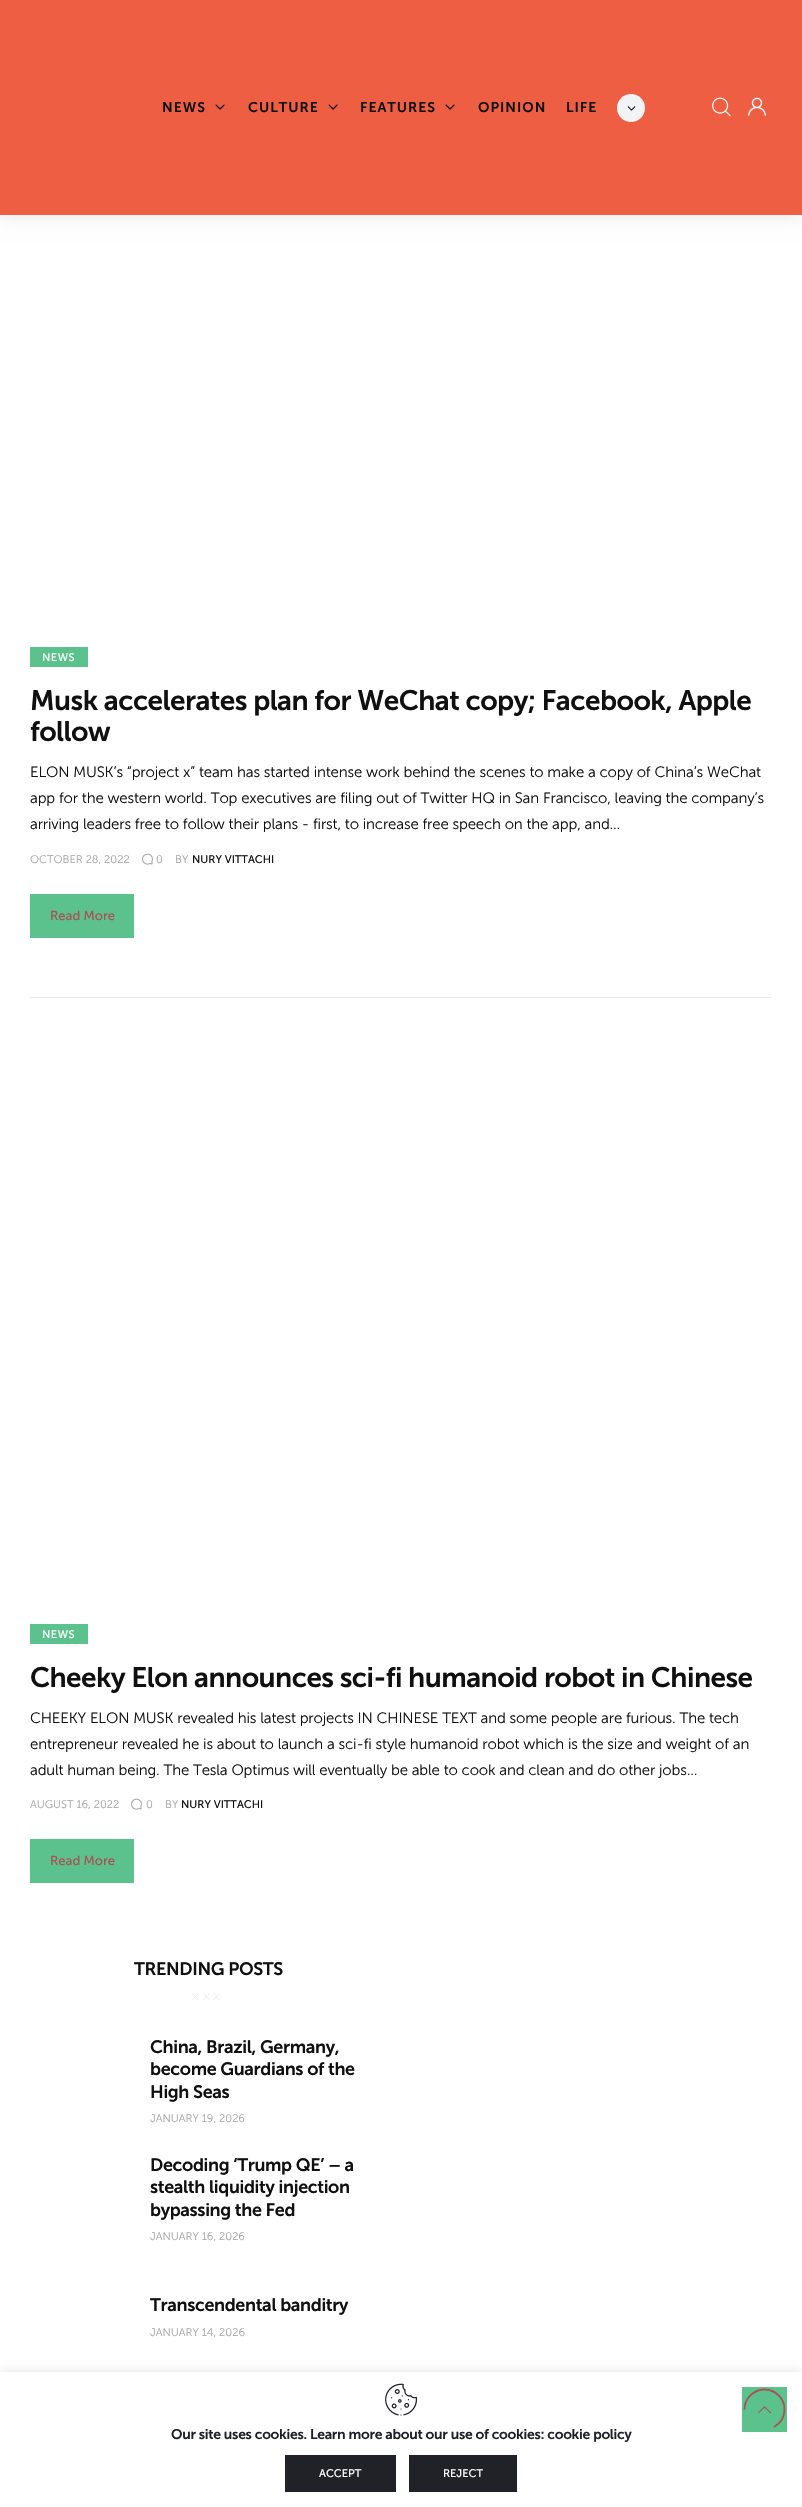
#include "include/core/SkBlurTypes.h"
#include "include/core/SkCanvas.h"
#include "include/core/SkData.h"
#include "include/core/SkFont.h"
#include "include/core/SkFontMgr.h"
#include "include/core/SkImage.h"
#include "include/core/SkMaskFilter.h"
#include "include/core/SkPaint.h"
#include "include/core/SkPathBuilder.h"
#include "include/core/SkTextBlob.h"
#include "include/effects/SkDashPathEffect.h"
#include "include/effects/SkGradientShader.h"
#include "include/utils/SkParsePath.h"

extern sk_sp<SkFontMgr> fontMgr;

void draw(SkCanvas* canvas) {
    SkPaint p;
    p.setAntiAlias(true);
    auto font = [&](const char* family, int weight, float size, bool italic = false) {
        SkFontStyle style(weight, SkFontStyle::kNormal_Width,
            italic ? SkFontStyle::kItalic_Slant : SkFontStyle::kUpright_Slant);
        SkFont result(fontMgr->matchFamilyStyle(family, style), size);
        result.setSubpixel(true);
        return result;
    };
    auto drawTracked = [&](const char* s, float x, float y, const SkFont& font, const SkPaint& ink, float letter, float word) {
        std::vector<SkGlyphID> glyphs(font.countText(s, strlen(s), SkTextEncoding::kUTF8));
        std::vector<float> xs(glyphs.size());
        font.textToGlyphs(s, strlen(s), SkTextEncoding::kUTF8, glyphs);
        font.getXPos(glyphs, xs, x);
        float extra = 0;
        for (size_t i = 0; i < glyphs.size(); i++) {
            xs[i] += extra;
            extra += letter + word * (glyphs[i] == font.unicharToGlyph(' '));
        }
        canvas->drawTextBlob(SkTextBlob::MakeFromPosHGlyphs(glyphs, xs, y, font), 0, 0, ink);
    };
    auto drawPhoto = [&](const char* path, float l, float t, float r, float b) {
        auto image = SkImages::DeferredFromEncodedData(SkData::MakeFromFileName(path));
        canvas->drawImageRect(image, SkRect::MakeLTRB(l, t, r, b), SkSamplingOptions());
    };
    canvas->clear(0xFFFFFFFF);
    p.setColor(0x14000000);
    p.setMaskFilter(SkMaskFilter::MakeBlur(kNormal_SkBlurStyle, 8));
    canvas->drawRect(SkRect::MakeLTRB(0, 3, 802, 218), p);
    p.setMaskFilter(nullptr);
    p.setColor(0xFFED5E42);
    canvas->drawRect(SkRect::MakeLTRB(0, 0, 802, 215), p);
    auto font1 = font("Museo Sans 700", 600, 14);
    p.setColor(0xFF101010);
    drawTracked("NEWS", 162, 112, font1, p, 1, 0);
    drawPhoto("media/1.png", 215, 104, 225, 110);
    drawTracked("CULTURE", 248, 112, font1, p, 1, 0);
    drawPhoto("media/1.png", 328, 104, 338, 110);
    drawTracked("FEATURES", 360, 112, font1, p, 1, 0);
    drawPhoto("media/1.png", 445, 104, 455, 110);
    drawTracked("OPINION", 478, 112, font1, p, 1, 0);
    drawTracked("LIFE", 566, 112, font1, p, 1, 0);
    p.setColor(0xFFF1F3F5);
    canvas->drawCircle(631, 108, 14, p);
    drawPhoto("media/2.png", 627, 106, 636, 111);
    drawPhoto("media/3.png", 712, 97, 731, 117);
    drawPhoto("media/4.png", 748, 97, 766, 116);
    p.setColor(0xFF5BC28E);
    canvas->drawRect(SkRect::MakeLTRB(30, 647, 88, 667), p);
    auto font2 = font("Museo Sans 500", 400, 11);
    p.setColor(0xFFFCFCFC);
    drawTracked("NEWS", 42, 661, font2, p, 0.5f, 0);
    auto font3 = font("Museo Sans 700", 600, 28);
    p.setColor(0xFF101010);
    drawTracked("Musk accelerates plan for WeChat copy; Facebook, Apple", 30, 710, font3, p, -0.55f, 0);
    drawTracked("follow", 30, 741, font3, p, -0.55f, 0);
    auto font4 = font("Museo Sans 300", 300, 15);
    {
        const struct { const char* s; float x, y; } items[] = {
            {"ELON MUSK’s “project x” team has started intense work behind the scenes to make a copy of China’s WeChat", 30, 777},
            {"app for the western world. Top executives are filing out of Twitter HQ in San Francisco, leaving the company’s", 30, 803},
            {"arriving leaders free to follow their plans - first, to increase free speech on the app, and…", 30, 829},
        };
        for (auto [s, x, y] : items) {
            drawTracked(s, x, y, font4, p, -0.15f, 0);
        }
    }
    auto font5 = font("Museo Sans 300", 300, 11);
    p.setColor(0xFFA5A6AA);
    canvas->drawString("OCTOBER 28, 2022", 30, 863, font5, p);
    drawPhoto("media/5.png", 142, 853, 153, 865);
    canvas->drawString("0", 156, 863, font5, p);
    canvas->drawString("BY", 175, 863, font5, p);
    p.setColor(0xFF101010);
    canvas->drawString("NURY VITTACHI", 192, 863, font2, p);
    p.setColor(0xFF5BC28E);
    canvas->drawRect(SkRect::MakeLTRB(30, 894, 134, 938), p);
    auto font6 = font("Museo Sans 500", 400, 13);
    p.setColor(0xFFA85252);
    canvas->drawString("Read More", 50, 920, font6, p);
    p.setColor(0xFFE8EAEA);
    canvas->drawRect(SkRect::MakeLTRB(30, 997, 772, 998), p);
    p.setColor(0xFF5BC28E);
    canvas->drawRect(SkRect::MakeLTRB(30, 1624, 88, 1644), p);
    p.setColor(0xFFFCFCFC);
    drawTracked("NEWS", 42, 1638, font2, p, 0.5f, 0);
    p.setColor(0xFF101010);
    drawTracked("Cheeky Elon announces sci-fi humanoid robot in Chinese", 30, 1687, font3, p, -0.55f, 0);
    {
        const struct { const char* s; float x, y; } items[] = {
            {"CHEEKY ELON MUSK revealed his latest projects IN CHINESE TEXT and some people are furious. The tech", 30, 1723},
            {"entrepreneur revealed he is about to launch a sci-fi style humanoid robot which is the size and weight of an", 30, 1749},
            {"adult human being. The Tesla Optimus will eventually be able to cook and clean and do other jobs…", 30, 1775},
        };
        for (auto [s, x, y] : items) {
            drawTracked(s, x, y, font4, p, -0.15f, 0);
        }
    }
    p.setColor(0xFFA5A6AA);
    canvas->drawString("AUGUST 16, 2022", 30, 1808, font5, p);
    drawPhoto("media/5.png", 131, 1798, 142, 1810);
    canvas->drawString("0", 146, 1808, font5, p);
    canvas->drawString("BY", 165, 1808, font5, p);
    p.setColor(0xFF101010);
    canvas->drawString("NURY VITTACHI", 181, 1808, font2, p);
    p.setColor(0xFF5BC28E);
    canvas->drawRect(SkRect::MakeLTRB(30, 1839, 134, 1883), p);
    p.setColor(0xFFA85252);
    canvas->drawString("Read More", 50, 1865, font6, p);
    auto font7 = font("Museo Sans 700", 600, 18);
    p.setColor(0xFF101010);
    drawTracked("TRENDING POSTS", 134, 1975, font7, p, -0.35f, 0);
    drawPhoto("media/6.png", 192, 1993, 199, 2000);
    drawPhoto("media/6.png", 203, 1993, 210, 2000);
    drawPhoto("media/6.png", 213, 1993, 220, 2000);
    {
        const struct { const char* s; float x, y; } items[] = {
            {"China, Brazil, Germany,", 150, 2053},
            {"become Guardians of the", 150, 2075},
            {"High Seas", 150, 2098},
        };
        for (auto [s, x, y] : items) {
            drawTracked(s, x, y, font7, p, -0.35f, 0);
        }
    }
    p.setColor(0xFFA5A6AA);
    canvas->drawString("JANUARY 19, 2026", 150, 2122, font5, p);
    p.setColor(0xFF101010);
    {
        const struct { const char* s; float x, y; } items[] = {
            {"Decoding ‘Trump QE’ – a", 150, 2171},
            {"stealth liquidity injection", 150, 2193},
            {"bypassing the Fed", 150, 2216},
        };
        for (auto [s, x, y] : items) {
            drawTracked(s, x, y, font7, p, -0.35f, 0);
        }
    }
    p.setColor(0xFFA5A6AA);
    canvas->drawString("JANUARY 16, 2026", 150, 2240, font5, p);
    p.setColor(0xFF101010);
    drawTracked("Transcendental banditry", 150, 2311, font7, p, -0.35f, 0);
    p.setColor(0xFFA5A6AA);
    canvas->drawString("JANUARY 14, 2026", 150, 2336, font5, p);
    p.setColor(0x4DACABAB);
    p.setMaskFilter(SkMaskFilter::MakeBlur(kNormal_SkBlurStyle, 5));
    canvas->drawRect(SkRect::MakeLTRB(0, 2371, 802, 2506), p);
    p.setMaskFilter(nullptr);
    p.setColor(0xFFFFFFFF);
    canvas->drawRect(SkRect::MakeLTRB(0, 2372, 802, 2507), p);
    p.setColor(0xFF5BC28E);
    canvas->drawRect(SkRect::MakeLTRB(742, 2387, 787, 2432), p);
    p.setStyle(SkPaint::kStroke_Style);
    p.setStrokeWidth(1.8f);
    p.setColor(0xFFA85252);
    canvas->drawPath(SkPathBuilder().moveTo(744.5f, 2409.5f).cubicTo(744.5f, 2398.5f, 753.5f, 2389.5f, 764.5f, 2389.5f).cubicTo(775.5f, 2389.5f, 784.5f, 2398.5f, 784.5f, 2409.5f).cubicTo(784.5f, 2417, 780, 2423.5f, 774, 2427).detach(), p);
    drawPhoto("media/7.png", 758, 2406, 771, 2414);
    drawPhoto("media/8.png", 385, 2383, 417, 2416);
    p.setStyle(SkPaint::kFill_Style);
    p.setColor(0xFF1D2027);
    drawTracked("Our site uses cookies. Learn more about our use of cookies: cookie policy", 171, 2439, font1, p, -0.28f, 0);
    p.setColor(0xFF212227);
    canvas->drawRect(SkRect::MakeLTRB(285, 2455, 396, 2492), p);
    p.setColor(0xFFFCFCFC);
    canvas->drawString("ACCEPT", 319, 2477, font2, p);
    p.setColor(0xFF212227);
    canvas->drawRect(SkRect::MakeLTRB(409, 2455, 517, 2492), p);
    p.setColor(0xFFFCFCFC);
    canvas->drawString("REJECT", 443, 2477, font2, p);
}
